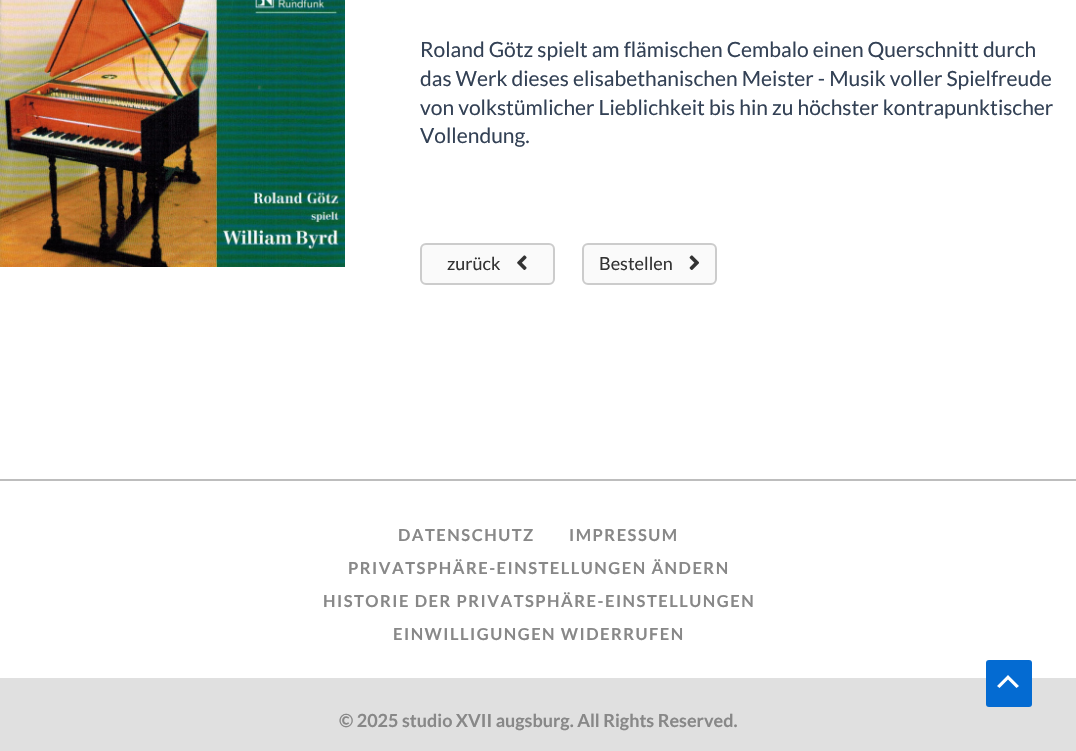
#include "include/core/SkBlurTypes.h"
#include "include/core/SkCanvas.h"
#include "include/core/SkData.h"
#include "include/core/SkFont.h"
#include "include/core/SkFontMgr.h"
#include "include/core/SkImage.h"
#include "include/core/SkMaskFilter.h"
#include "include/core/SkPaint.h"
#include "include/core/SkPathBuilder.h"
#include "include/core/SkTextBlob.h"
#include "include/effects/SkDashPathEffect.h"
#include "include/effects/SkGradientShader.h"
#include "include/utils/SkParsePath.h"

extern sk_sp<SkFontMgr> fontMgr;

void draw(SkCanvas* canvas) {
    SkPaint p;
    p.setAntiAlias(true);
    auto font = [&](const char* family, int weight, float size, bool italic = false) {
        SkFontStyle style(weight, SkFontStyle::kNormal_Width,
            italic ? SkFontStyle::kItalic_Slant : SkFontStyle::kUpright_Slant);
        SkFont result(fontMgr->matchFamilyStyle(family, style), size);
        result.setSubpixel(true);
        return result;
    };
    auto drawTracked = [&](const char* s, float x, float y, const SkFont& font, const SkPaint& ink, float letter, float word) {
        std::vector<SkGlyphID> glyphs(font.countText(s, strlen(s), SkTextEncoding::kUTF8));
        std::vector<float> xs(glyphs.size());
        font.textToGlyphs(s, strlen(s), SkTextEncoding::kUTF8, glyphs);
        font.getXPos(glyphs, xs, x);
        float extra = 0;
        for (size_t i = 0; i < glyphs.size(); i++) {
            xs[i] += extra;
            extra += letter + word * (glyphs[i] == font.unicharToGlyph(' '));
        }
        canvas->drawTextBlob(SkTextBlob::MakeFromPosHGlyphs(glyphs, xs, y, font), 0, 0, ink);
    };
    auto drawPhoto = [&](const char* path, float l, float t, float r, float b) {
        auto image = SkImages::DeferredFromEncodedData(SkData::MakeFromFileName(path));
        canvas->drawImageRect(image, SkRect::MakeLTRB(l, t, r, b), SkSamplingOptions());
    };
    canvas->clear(0xFFFFFFFF);
    drawPhoto("media/1.png", 0, 0, 345, 267);
    auto font1 = font("Lato", 400, 21);
    p.setColor(0xFF334155);
    {
        const struct { const char* s; float x, y; } items[] = {
            {"Roland Götz spielt am flämischen Cembalo einen Querschnitt durch", 420, 57},
            {"das Werk dieses elisabethanischen Meister - Musik voller Spielfreude", 420, 86},
            {"von volkstümlicher Lieblichkeit bis hin zu höchster kontrapunktischer", 420, 115},
            {"Vollendung.", 420, 143},
        };
        for (auto [s, x, y] : items) {
            canvas->drawString(s, x, y, font1, p);
        }
    }
    p.setColor(0xFFFAFAFA);
    canvas->drawRoundRect(SkRect::MakeLTRB(421, 244, 554, 284), 5, 5, p);
    p.setStyle(SkPaint::kStroke_Style);
    p.setStrokeWidth(2);
    p.setColor(0xFFCCCCCC);
    canvas->drawRoundRect(SkRect::MakeLTRB(421, 244, 554, 284), 5, 5, p);
    auto font2 = font("Lato", 400, 18);
    p.setStyle(SkPaint::kFill_Style);
    p.setColor(0xFF333333);
    canvas->drawString("zurück", 447, 270, font2, p);
    drawPhoto("media/2.png", 517, 255, 527, 270);
    p.setColor(0xFFFAFAFA);
    canvas->drawRoundRect(SkRect::MakeLTRB(583, 244, 716, 284), 5, 5, p);
    p.setStyle(SkPaint::kStroke_Style);
    p.setColor(0xFFCCCCCC);
    canvas->drawRoundRect(SkRect::MakeLTRB(583, 244, 716, 284), 5, 5, p);
    p.setStyle(SkPaint::kFill_Style);
    p.setColor(0xFF333333);
    canvas->drawString("Bestellen", 599, 270, font2, p);
    drawPhoto("media/3.png", 689, 255, 699, 270);
    p.setColor(0xFFBDBDBD);
    canvas->drawRect(SkRect::MakeLTRB(0, 479, 1076, 481), p);
    auto font3 = font("Lato", 700, 16.5f);
    p.setColor(0xFF888888);
    {
        const struct { const char* s; float x, y; } items[] = {
            {"DATENSCHUTZ", 398, 541},
            {"IMPRESSUM", 569, 541},
            {"PRIVATSPHÄRE-EINSTELLUNGEN ÄNDERN", 348, 574},
            {"HISTORIE DER PRIVATSPHÄRE-EINSTELLUNGEN", 323, 607},
            {"EINWILLIGUNGEN WIDERRUFEN", 393, 640},
        };
        for (auto [s, x, y] : items) {
            drawTracked(s, x, y, font3, p, 1.5f, 0);
        }
    }
    p.setColor(0xFFE0E0E0);
    canvas->drawRect(SkRect::MakeLTRB(0, 678, 1076, 751), p);
    auto font4 = font("Lato", 700, 18);
    p.setColor(0xFF888888);
    canvas->drawString("© 2025 studio XVII augsburg. All Rights Reserved.", 339, 727, font4, p);
    p.setColor(0xFF046BD2);
    canvas->drawRoundRect(SkRect::MakeLTRB(986, 660, 1032, 707), 3, 3, p);
    p.setColor(0xFFFFFFFF);
    canvas->drawPath(SkPathBuilder().moveTo(1019, 686).lineTo(1008, 675).lineTo(997, 686).lineTo(999.5f, 688).lineTo(1008, 679.5f).lineTo(1016.5f, 688).close().detach(), p);
}
